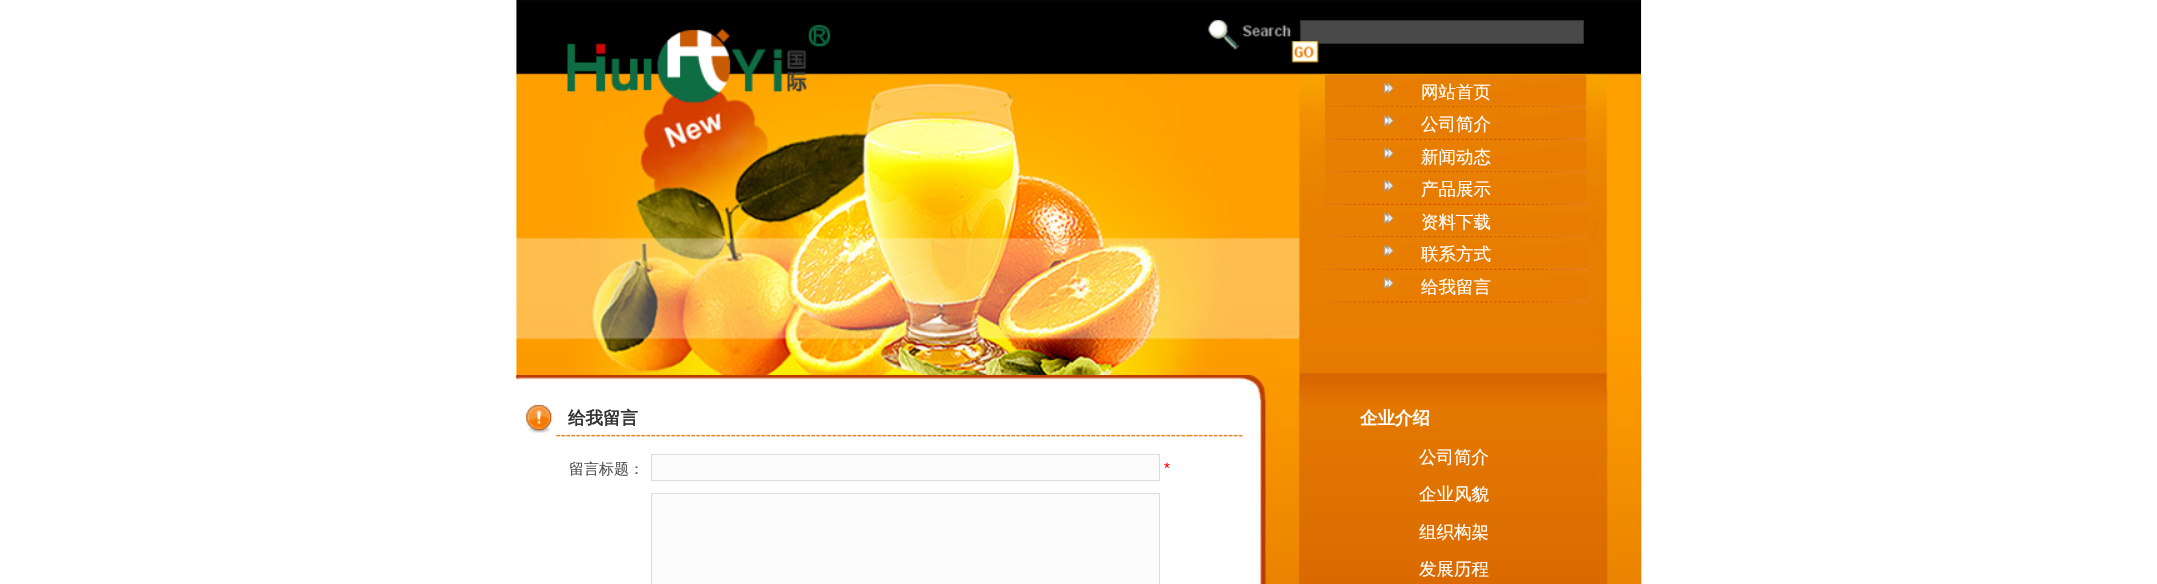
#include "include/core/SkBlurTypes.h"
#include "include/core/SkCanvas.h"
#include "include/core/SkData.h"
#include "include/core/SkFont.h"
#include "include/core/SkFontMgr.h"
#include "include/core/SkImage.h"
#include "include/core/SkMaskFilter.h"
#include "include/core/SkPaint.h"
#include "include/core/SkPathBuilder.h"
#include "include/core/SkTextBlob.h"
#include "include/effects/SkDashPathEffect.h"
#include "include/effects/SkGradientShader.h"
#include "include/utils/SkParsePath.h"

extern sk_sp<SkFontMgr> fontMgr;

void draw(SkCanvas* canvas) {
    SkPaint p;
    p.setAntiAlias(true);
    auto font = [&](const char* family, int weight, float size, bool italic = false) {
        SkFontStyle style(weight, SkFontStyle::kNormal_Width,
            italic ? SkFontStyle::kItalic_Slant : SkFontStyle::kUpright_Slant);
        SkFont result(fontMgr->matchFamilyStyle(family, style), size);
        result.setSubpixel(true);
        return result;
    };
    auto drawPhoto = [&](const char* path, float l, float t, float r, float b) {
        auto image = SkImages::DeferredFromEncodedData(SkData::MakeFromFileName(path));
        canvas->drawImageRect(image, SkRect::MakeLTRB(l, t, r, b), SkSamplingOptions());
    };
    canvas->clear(0xFFFFFFFF);
    drawPhoto("media/1.png", 516, 0, 1642, 375);
    drawPhoto("media/2.png", 567, 24, 831, 103);
    drawPhoto("media/3.png", 1207, 20, 1292, 50);
    p.setColor(0xFF484848);
    canvas->drawRect(SkRect::MakeLTRB(1300.5f, 20.5f, 1583.5f, 43.5f), p);
    p.setStyle(SkPaint::kStroke_Style);
    p.setStrokeWidth(1);
    p.setColor(0xFF313131);
    canvas->drawRect(SkRect::MakeLTRB(1300.5f, 20.5f, 1583.5f, 43.5f), p);
    drawPhoto("media/4.png", 1291, 41, 1319, 63);
    drawPhoto("media/5.png", 1325, 75, 1587, 108);
    auto font1 = font("WenQuanYi Zen Hei", 500, 17.5f);
    p.setStyle(SkPaint::kFill_Style);
    p.setColor(0xFFFFFFFF);
    canvas->drawString("网站首页", 1421, 98, font1, p);
    drawPhoto("media/6.png", 1325, 107, 1587, 140);
    canvas->drawString("公司简介", 1421, 130, font1, p);
    drawPhoto("media/7.png", 1325, 140, 1587, 173);
    canvas->drawString("新闻动态", 1421, 163, font1, p);
    drawPhoto("media/8.png", 1325, 172, 1587, 205);
    canvas->drawString("产品展示", 1421, 195, font1, p);
    drawPhoto("media/9.png", 1325, 212, 1587, 238);
    canvas->drawString("资料下载", 1421, 228, font1, p);
    drawPhoto("media/10.png", 1325, 237, 1587, 270);
    canvas->drawString("联系方式", 1421, 260, font1, p);
    drawPhoto("media/11.png", 1325, 277, 1587, 303);
    canvas->drawString("给我留言", 1421, 293, font1, p);
    drawPhoto("media/12.png", 516, 375, 1642, 584);
    drawPhoto("media/13.png", 526, 404, 1253, 437);
    auto font2 = font("WenQuanYi Zen Hei", 700, 17.5f);
    p.setColor(0xFF333333);
    canvas->drawString("给我留言", 568, 424, font2, p);
    drawPhoto("media/14.png", 1190, 434, 1253, 437);
    auto font3 = font("WenQuanYi Zen Hei", 500, 15);
    p.setColor(0xFF505050);
    canvas->drawString("留言标题：", 569, 474, font3, p);
    p.setColor(0xFFFBFBFB);
    canvas->drawRect(SkRect::MakeLTRB(651.5f, 454.5f, 1159.5f, 480.5f), p);
    p.setStyle(SkPaint::kStroke_Style);
    p.setColor(0xFFDDDDDD);
    canvas->drawRect(SkRect::MakeLTRB(651.5f, 454.5f, 1159.5f, 480.5f), p);
    auto font4 = font("Liberation Sans", 400, 15);
    p.setStyle(SkPaint::kFill_Style);
    p.setColor(0xFFFF0000);
    canvas->drawString("*", 1164, 473, font4, p);
    p.setColor(0xFFFBFBFB);
    canvas->drawRect(SkRect::MakeLTRB(651.5f, 493.5f, 1159.5f, 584.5f), p);
    p.setStyle(SkPaint::kStroke_Style);
    p.setColor(0xFFDDDDDD);
    canvas->drawRect(SkRect::MakeLTRB(651.5f, 493.5f, 1159.5f, 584.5f), p);
    p.setStyle(SkPaint::kFill_Style);
    p.setColor(0xFFFFFFFF);
    canvas->drawString("企业介绍", 1360, 424, font2, p);
    {
        const struct { const char* s; float x, y; } items[] = {
            {"公司简介", 1419, 463},
            {"企业风貌", 1419, 500},
            {"组织构架", 1419, 538},
            {"发展历程", 1419, 575},
        };
        for (auto [s, x, y] : items) {
            canvas->drawString(s, x, y, font1, p);
        }
    }
}
